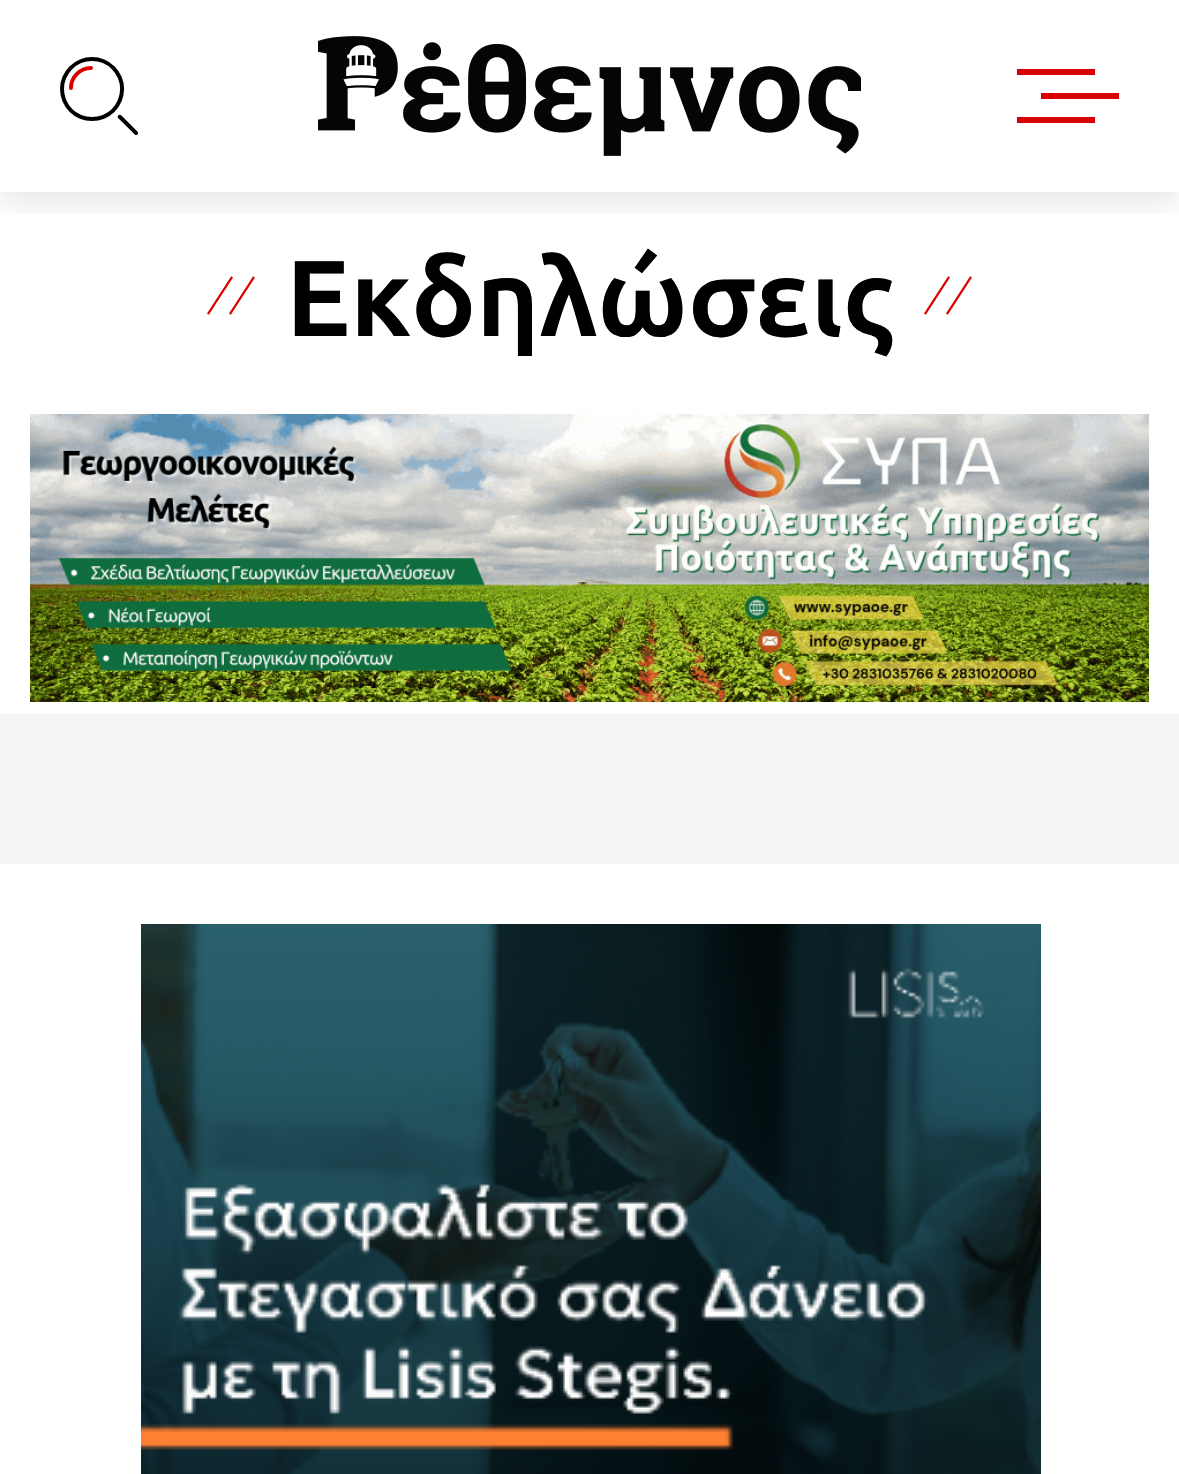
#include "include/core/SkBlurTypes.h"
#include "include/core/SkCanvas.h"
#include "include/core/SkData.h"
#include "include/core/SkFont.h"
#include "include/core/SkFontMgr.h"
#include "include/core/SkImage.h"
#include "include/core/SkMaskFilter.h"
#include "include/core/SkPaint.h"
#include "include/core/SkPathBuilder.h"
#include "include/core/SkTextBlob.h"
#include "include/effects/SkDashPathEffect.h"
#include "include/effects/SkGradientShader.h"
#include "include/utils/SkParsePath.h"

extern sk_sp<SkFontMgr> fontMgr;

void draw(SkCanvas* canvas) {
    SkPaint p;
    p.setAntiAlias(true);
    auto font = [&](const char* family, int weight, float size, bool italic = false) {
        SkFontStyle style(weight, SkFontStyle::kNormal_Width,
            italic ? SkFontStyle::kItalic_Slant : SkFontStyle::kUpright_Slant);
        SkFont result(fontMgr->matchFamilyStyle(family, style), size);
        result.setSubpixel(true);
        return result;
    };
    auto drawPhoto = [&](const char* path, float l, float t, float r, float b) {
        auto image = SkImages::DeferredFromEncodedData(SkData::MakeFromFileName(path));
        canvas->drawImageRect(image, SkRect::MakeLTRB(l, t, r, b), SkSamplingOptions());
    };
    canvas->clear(0xFFFFFFFF);
    canvas->save();
    canvas->clipRect(SkRect::MakeLTRB(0, 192, 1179, 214));
    p.setColor(0x1A000000);
    p.setMaskFilter(SkMaskFilter::MakeBlur(kNormal_SkBlurStyle, 15));
    canvas->drawRect(SkRect::MakeLTRB(0, 9, 1179, 201), p);
    p.setMaskFilter(nullptr);
    canvas->restore();
    drawPhoto("media/1.png", 60, 57, 138, 135);
    drawPhoto("media/2.png", 69, 66, 93, 90);
    drawPhoto("media/3.png", 318, 36, 861, 156);
    {
        const struct { float l, t, r, b; SkColor color; } items[] = {
            {1041, 93, 1119, 99, 0xFFD80000},
            {1017, 69, 1095, 75, 0xFFD80000},
            {1017, 117, 1095, 123, 0xFFD80000},
        };
        for (auto [l, t, r, b, color] : items) {
            p.setColor(color);
            canvas->drawRect(SkRect::MakeLTRB(l, t, r, b), p);
        }
    }
    drawPhoto("media/4.png", 207, 276, 255, 315);
    auto font1 = font("Ubuntu", 700, 108);
    p.setColor(0xFF000000);
    canvas->drawString("Εκδηλώσεις", 286, 336, font1, p);
    drawPhoto("media/5.png", 924, 276, 972, 315);
    drawPhoto("media/6.png", 30, 414, 1149, 702);
    p.setColor(0xFFF4F4F7);
    canvas->drawRect(SkRect::MakeLTRB(0, 714, 1179, 864), p);
    drawPhoto("media/7.png", 141, 924, 1041, 1474);
}
